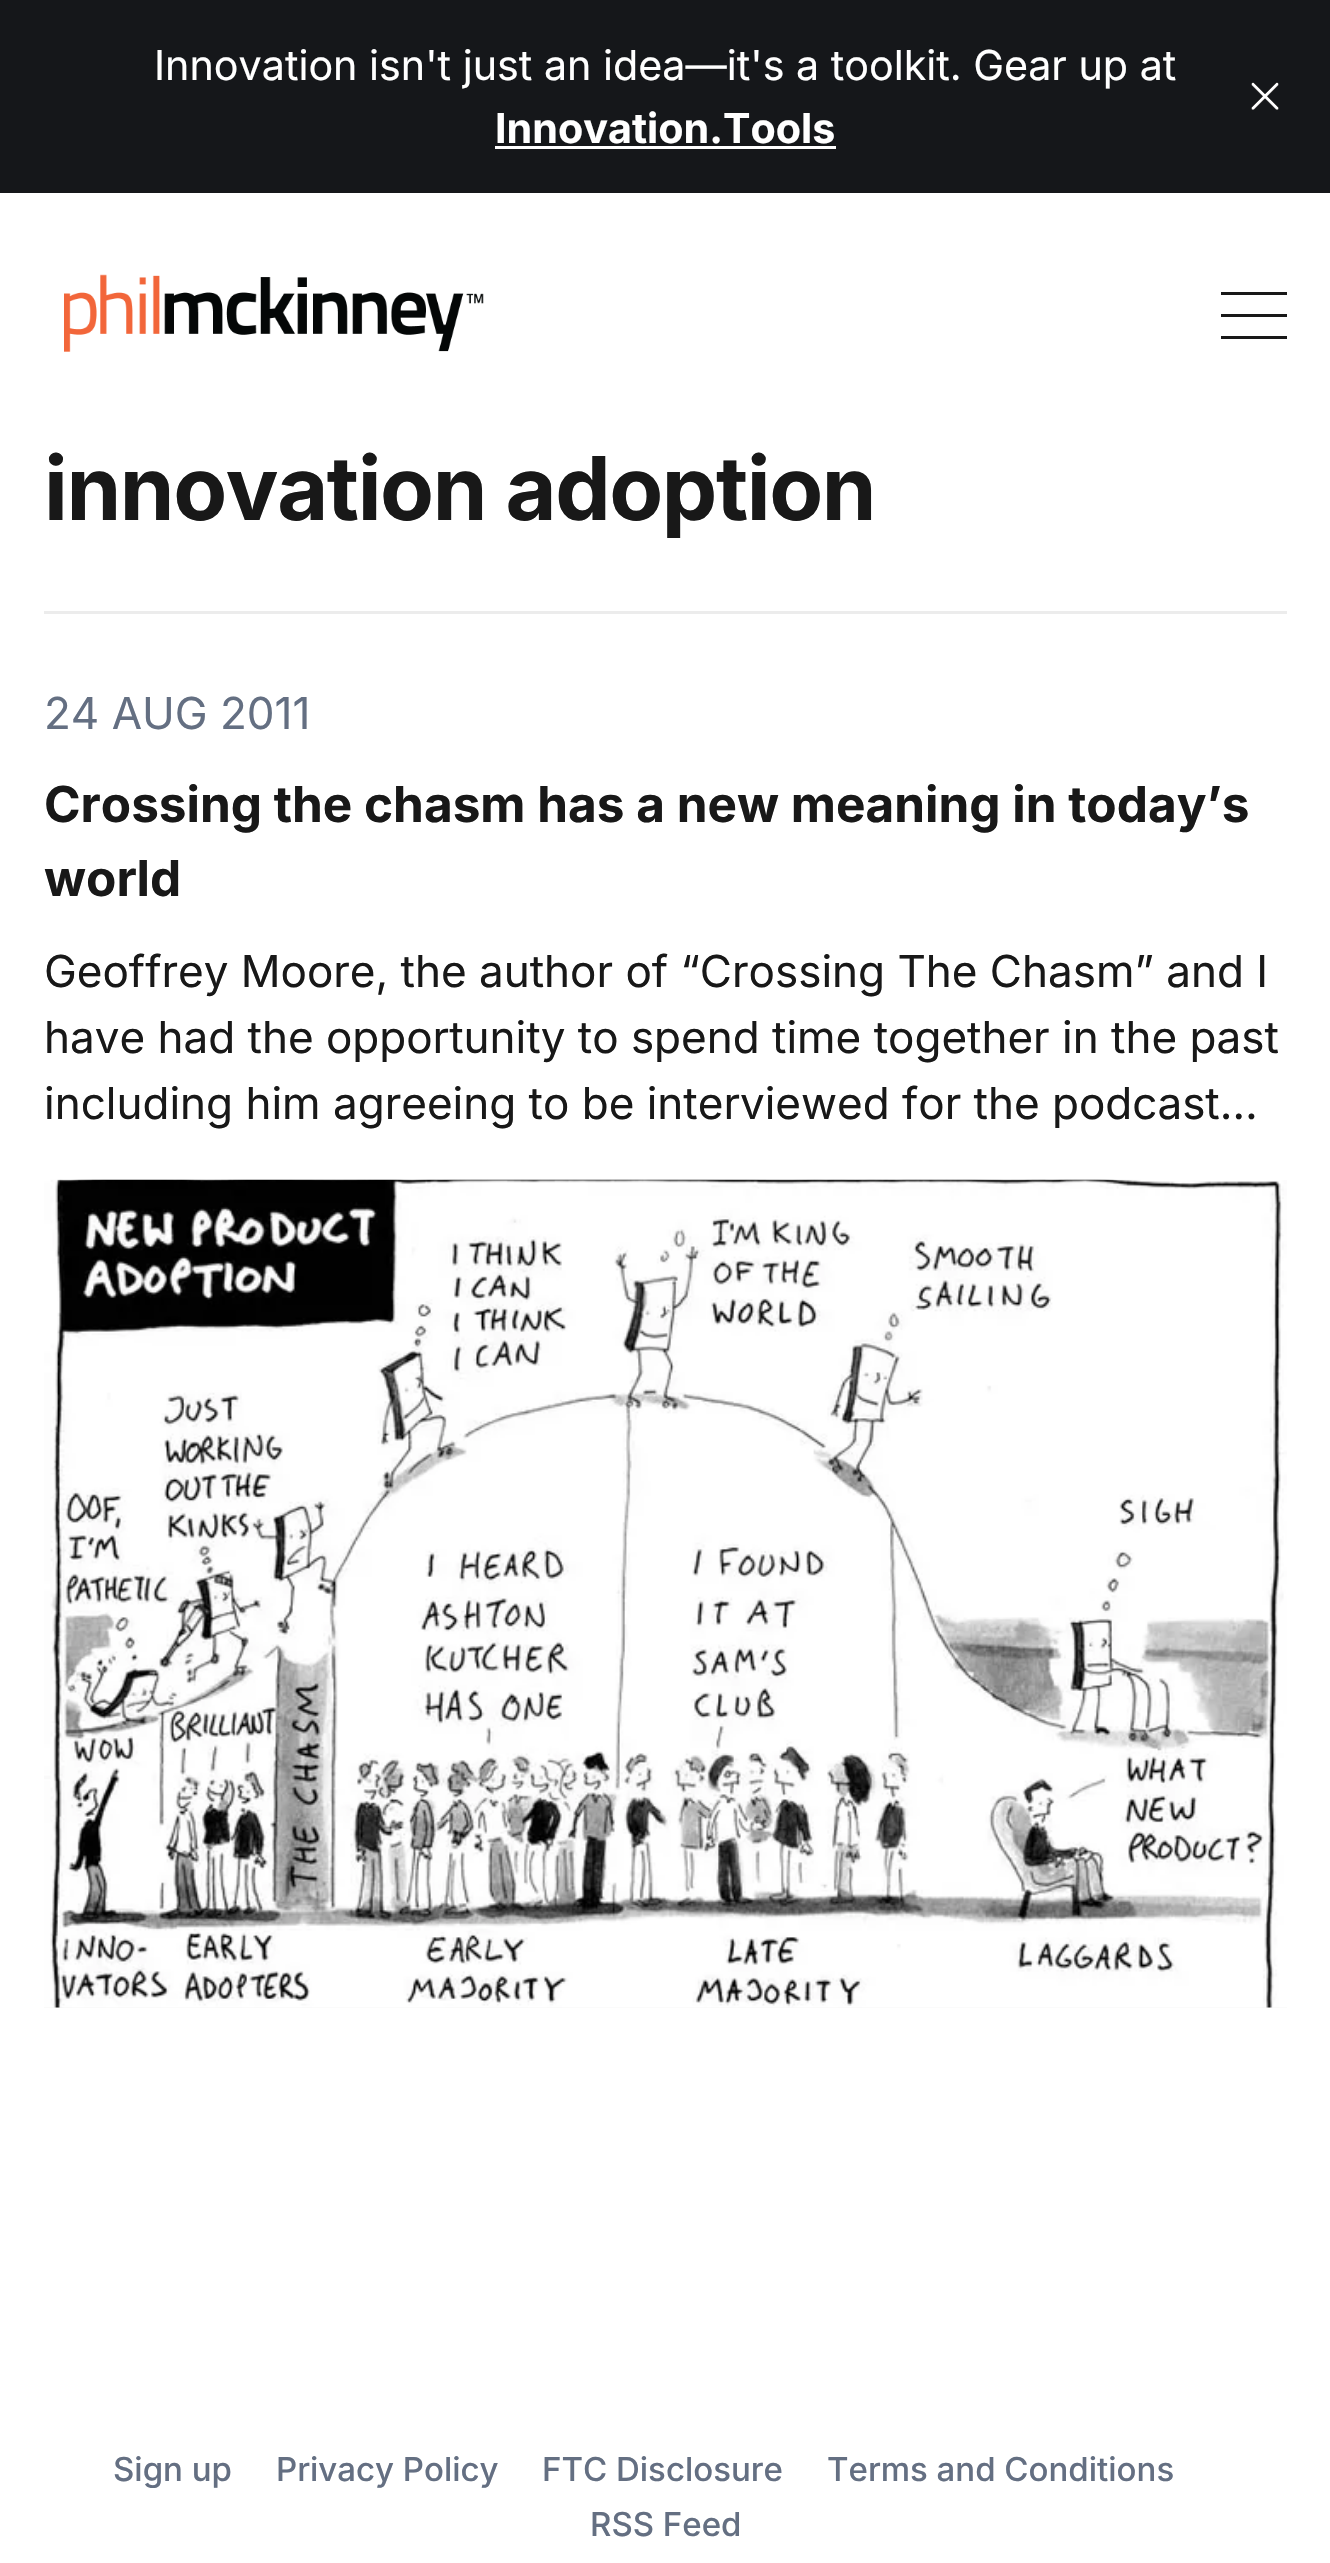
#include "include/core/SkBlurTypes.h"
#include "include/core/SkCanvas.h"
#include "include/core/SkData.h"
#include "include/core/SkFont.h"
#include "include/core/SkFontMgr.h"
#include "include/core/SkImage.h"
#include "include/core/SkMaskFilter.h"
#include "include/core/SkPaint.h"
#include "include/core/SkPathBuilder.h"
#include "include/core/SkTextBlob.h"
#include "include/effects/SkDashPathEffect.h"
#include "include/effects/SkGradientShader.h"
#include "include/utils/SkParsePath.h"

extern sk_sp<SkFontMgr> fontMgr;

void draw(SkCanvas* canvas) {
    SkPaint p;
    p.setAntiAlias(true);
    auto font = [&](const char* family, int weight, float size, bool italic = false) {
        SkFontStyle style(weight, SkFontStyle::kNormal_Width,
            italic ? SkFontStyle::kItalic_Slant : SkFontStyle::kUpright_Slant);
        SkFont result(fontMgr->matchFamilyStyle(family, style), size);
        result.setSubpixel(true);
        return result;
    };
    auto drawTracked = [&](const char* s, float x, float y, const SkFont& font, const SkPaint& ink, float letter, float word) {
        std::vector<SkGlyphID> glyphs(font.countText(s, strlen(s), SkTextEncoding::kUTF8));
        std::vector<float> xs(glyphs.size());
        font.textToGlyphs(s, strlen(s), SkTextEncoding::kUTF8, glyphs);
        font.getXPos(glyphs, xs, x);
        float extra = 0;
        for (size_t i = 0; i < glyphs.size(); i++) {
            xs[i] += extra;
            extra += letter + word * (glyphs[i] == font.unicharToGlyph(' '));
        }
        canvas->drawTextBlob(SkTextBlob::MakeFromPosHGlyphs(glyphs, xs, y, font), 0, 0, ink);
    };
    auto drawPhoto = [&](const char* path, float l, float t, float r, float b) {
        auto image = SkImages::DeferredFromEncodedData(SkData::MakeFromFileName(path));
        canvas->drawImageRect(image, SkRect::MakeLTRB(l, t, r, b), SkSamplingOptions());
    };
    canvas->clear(0xFFFFFFFF);
    p.setColor(0xFF15171A);
    canvas->drawRect(SkRect::MakeLTRB(0, 0, 1330, 193), p);
    auto font1 = font("Inter", 400, 41.25f);
    p.setColor(0xFFFFFFFF);
    canvas->drawString("Innovation isn't just an idea—it's a toolkit. Gear up at", 154, 80, font1, p);
    auto font2 = font("Inter", 700, 41.25f);
    canvas->drawString("Innovation.Tools", 495, 143, font2, p);
    canvas->drawRect(SkRect::MakeLTRB(495, 146, 836, 149), p);
    drawPhoto("media/1.png", 1251, 82, 1279, 110);
    drawPhoto("media/2.png", 64, 274, 484, 352);
    {
        const struct { float l, t, r, b; SkColor color; } items[] = {
            {1221, 292, 1287, 295, 0xFF181818},
            {1221, 314, 1287, 317, 0xFF181818},
            {1221, 336, 1287, 339, 0xFF181818},
            {44, 611, 1287, 614, 0xFFECECEC},
        };
        for (auto [l, t, r, b, color] : items) {
            p.setColor(color);
            canvas->drawRect(SkRect::MakeLTRB(l, t, r, b), p);
        }
    }
    auto font3 = font("Inter", 700, 88);
    p.setColor(0xFF181818);
    drawTracked("innovation adoption", 44, 520, font3, p, -1.4f, 0);
    auto font4 = font("Inter", 400, 44);
    p.setColor(0xFF646F82);
    canvas->drawString("24 AUG 2011", 44, 729, font4, p);
    auto font5 = font("Inter", 700, 49.5f);
    p.setColor(0xFF181818);
    canvas->drawString("Crossing the chasm has a new meaning in today’s", 44, 822, font5, p);
    canvas->drawString("world", 44, 896, font5, p);
    {
        const struct { const char* s; float x, y; } items[] = {
            {"Geoffrey Moore, the author of “Crossing The Chasm” and I", 44, 987},
            {"have had the opportunity to spend time together in the past", 44, 1053},
            {"including him agreeing to be interviewed for the podcast…", 44, 1119},
        };
        for (auto [s, x, y] : items) {
            canvas->drawString(s, x, y, font4, p);
        }
    }
    p.setColor(0xFFF6F6F6);
    canvas->drawRect(SkRect::MakeLTRB(44, 2007, 1287, 2008), p);
    drawPhoto("media/3.png", 44, 1179, 1287, 2008);
    auto font6 = font("Inter", 500, 33);
    p.setColor(0xFF646F82);
    {
        const struct { const char* s; float x, y; } items[] = {
            {"Sign up", 113, 2481},
            {"Privacy Policy", 276, 2481},
            {"FTC Disclosure", 542, 2481},
            {"Terms and Conditions", 827, 2481},
            {"RSS Feed", 590, 2536},
        };
        for (auto [s, x, y] : items) {
            canvas->drawString(s, x, y, font6, p);
        }
    }
}
